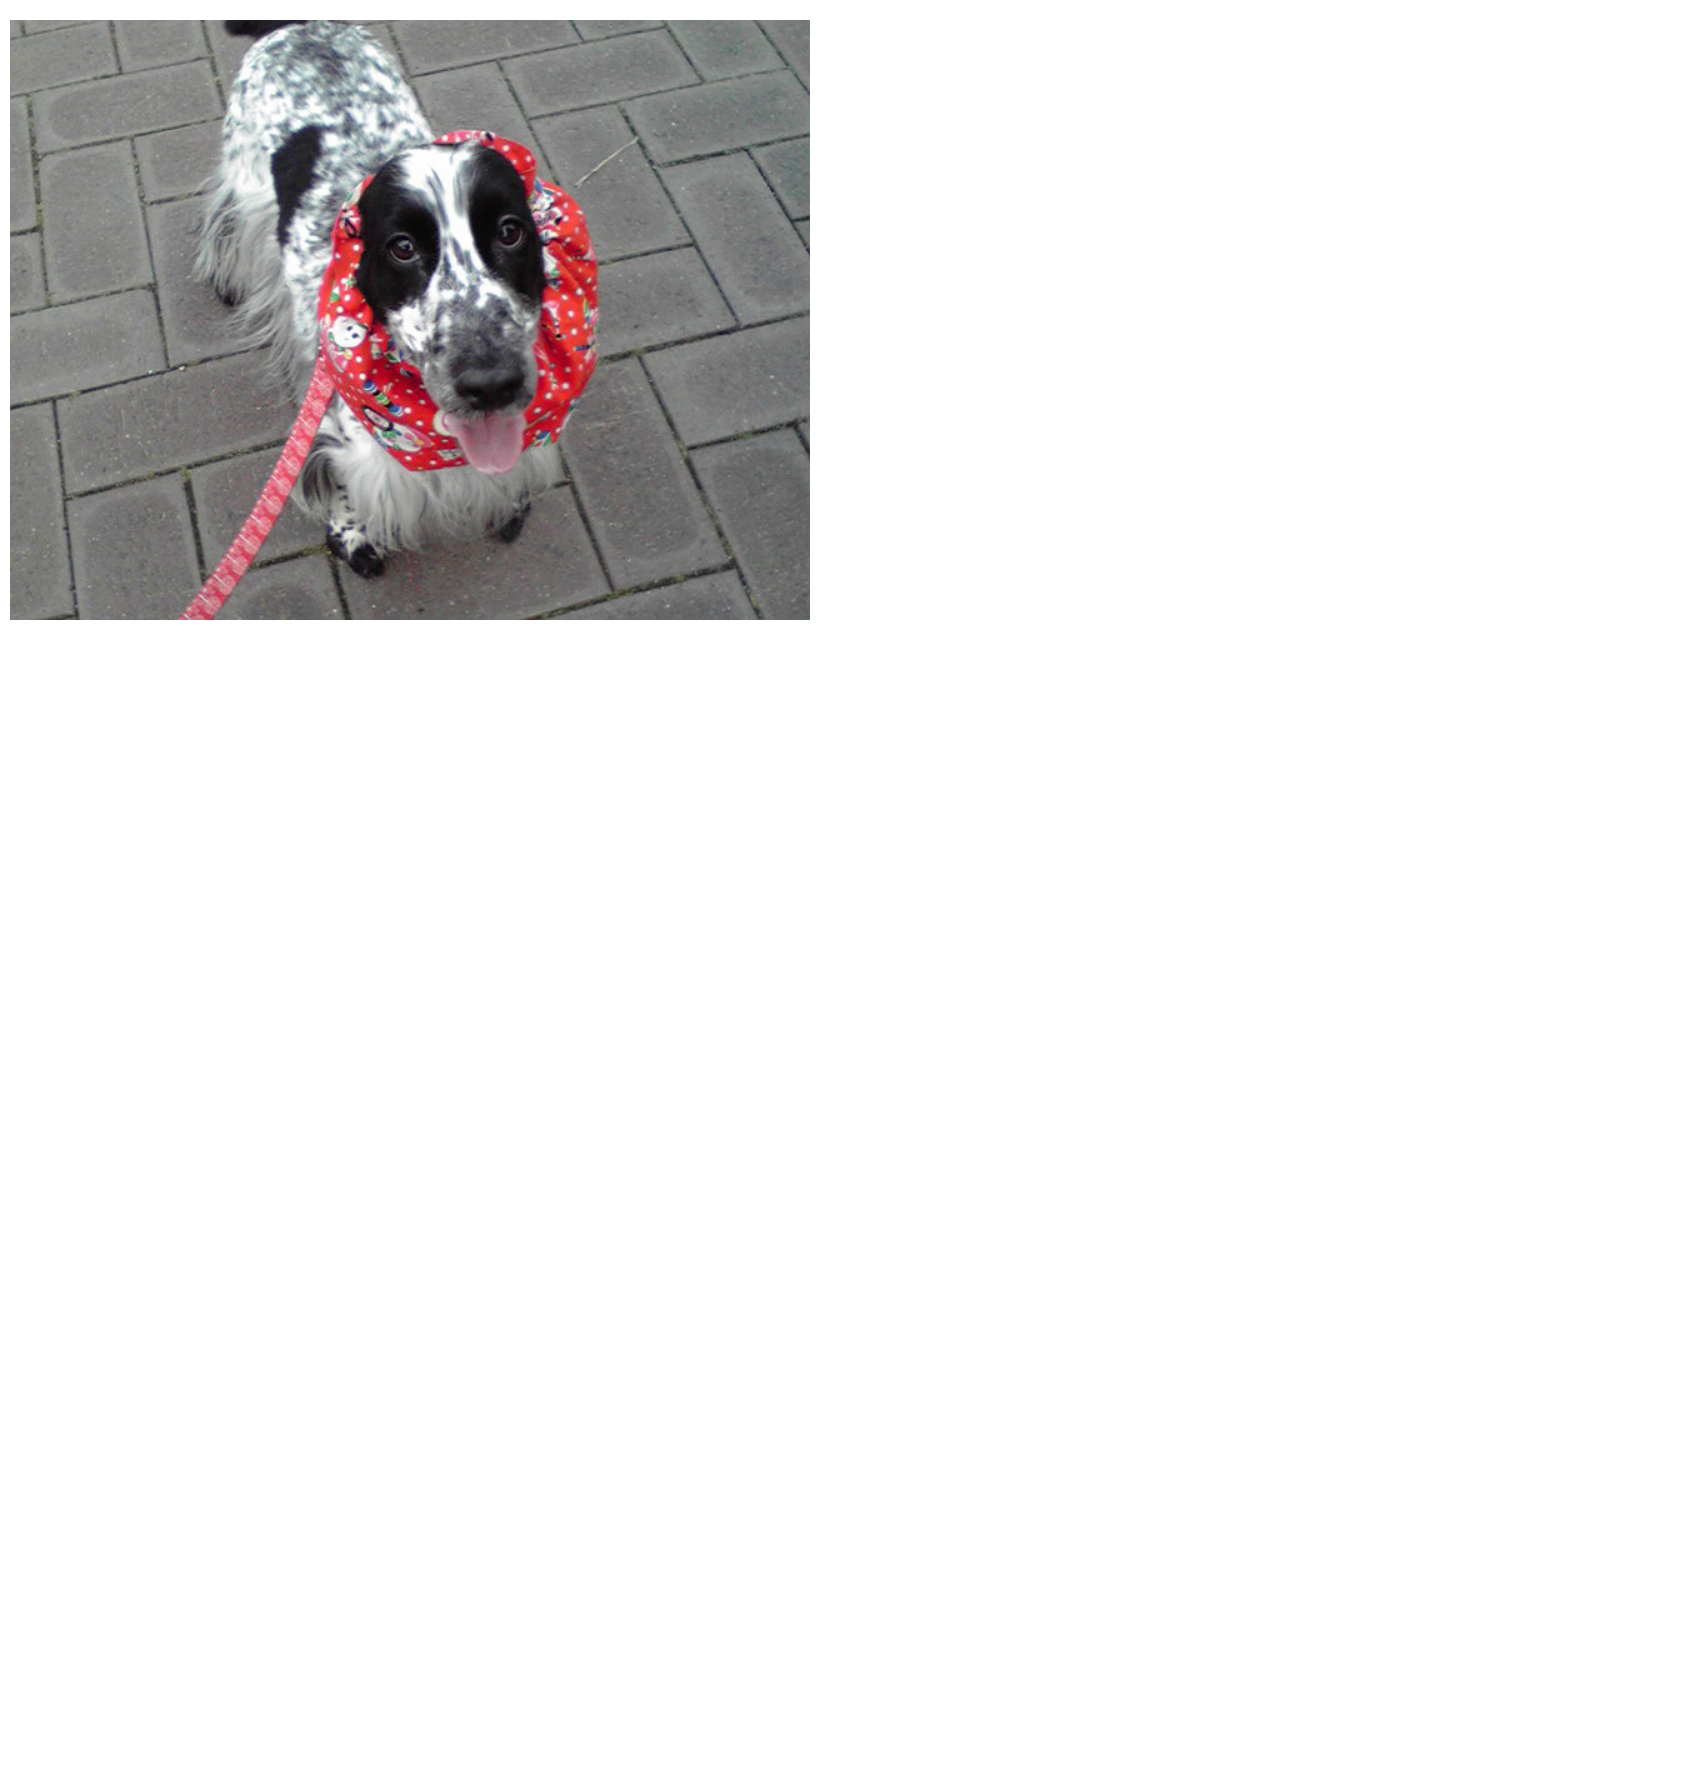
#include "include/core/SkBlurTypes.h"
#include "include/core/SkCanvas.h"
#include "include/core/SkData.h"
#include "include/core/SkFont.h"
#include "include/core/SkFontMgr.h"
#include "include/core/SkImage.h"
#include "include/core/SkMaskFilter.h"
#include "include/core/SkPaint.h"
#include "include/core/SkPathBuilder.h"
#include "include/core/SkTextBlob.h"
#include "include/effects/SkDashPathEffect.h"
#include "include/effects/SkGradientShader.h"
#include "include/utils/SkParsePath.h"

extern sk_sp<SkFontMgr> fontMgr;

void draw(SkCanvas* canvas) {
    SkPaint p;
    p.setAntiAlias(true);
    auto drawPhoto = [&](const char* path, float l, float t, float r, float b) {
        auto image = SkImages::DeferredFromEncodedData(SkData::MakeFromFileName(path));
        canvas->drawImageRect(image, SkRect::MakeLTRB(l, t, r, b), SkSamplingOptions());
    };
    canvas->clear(0xFFFFFFFF);
    drawPhoto("media/1.png", 10, 20, 810, 620);
}
